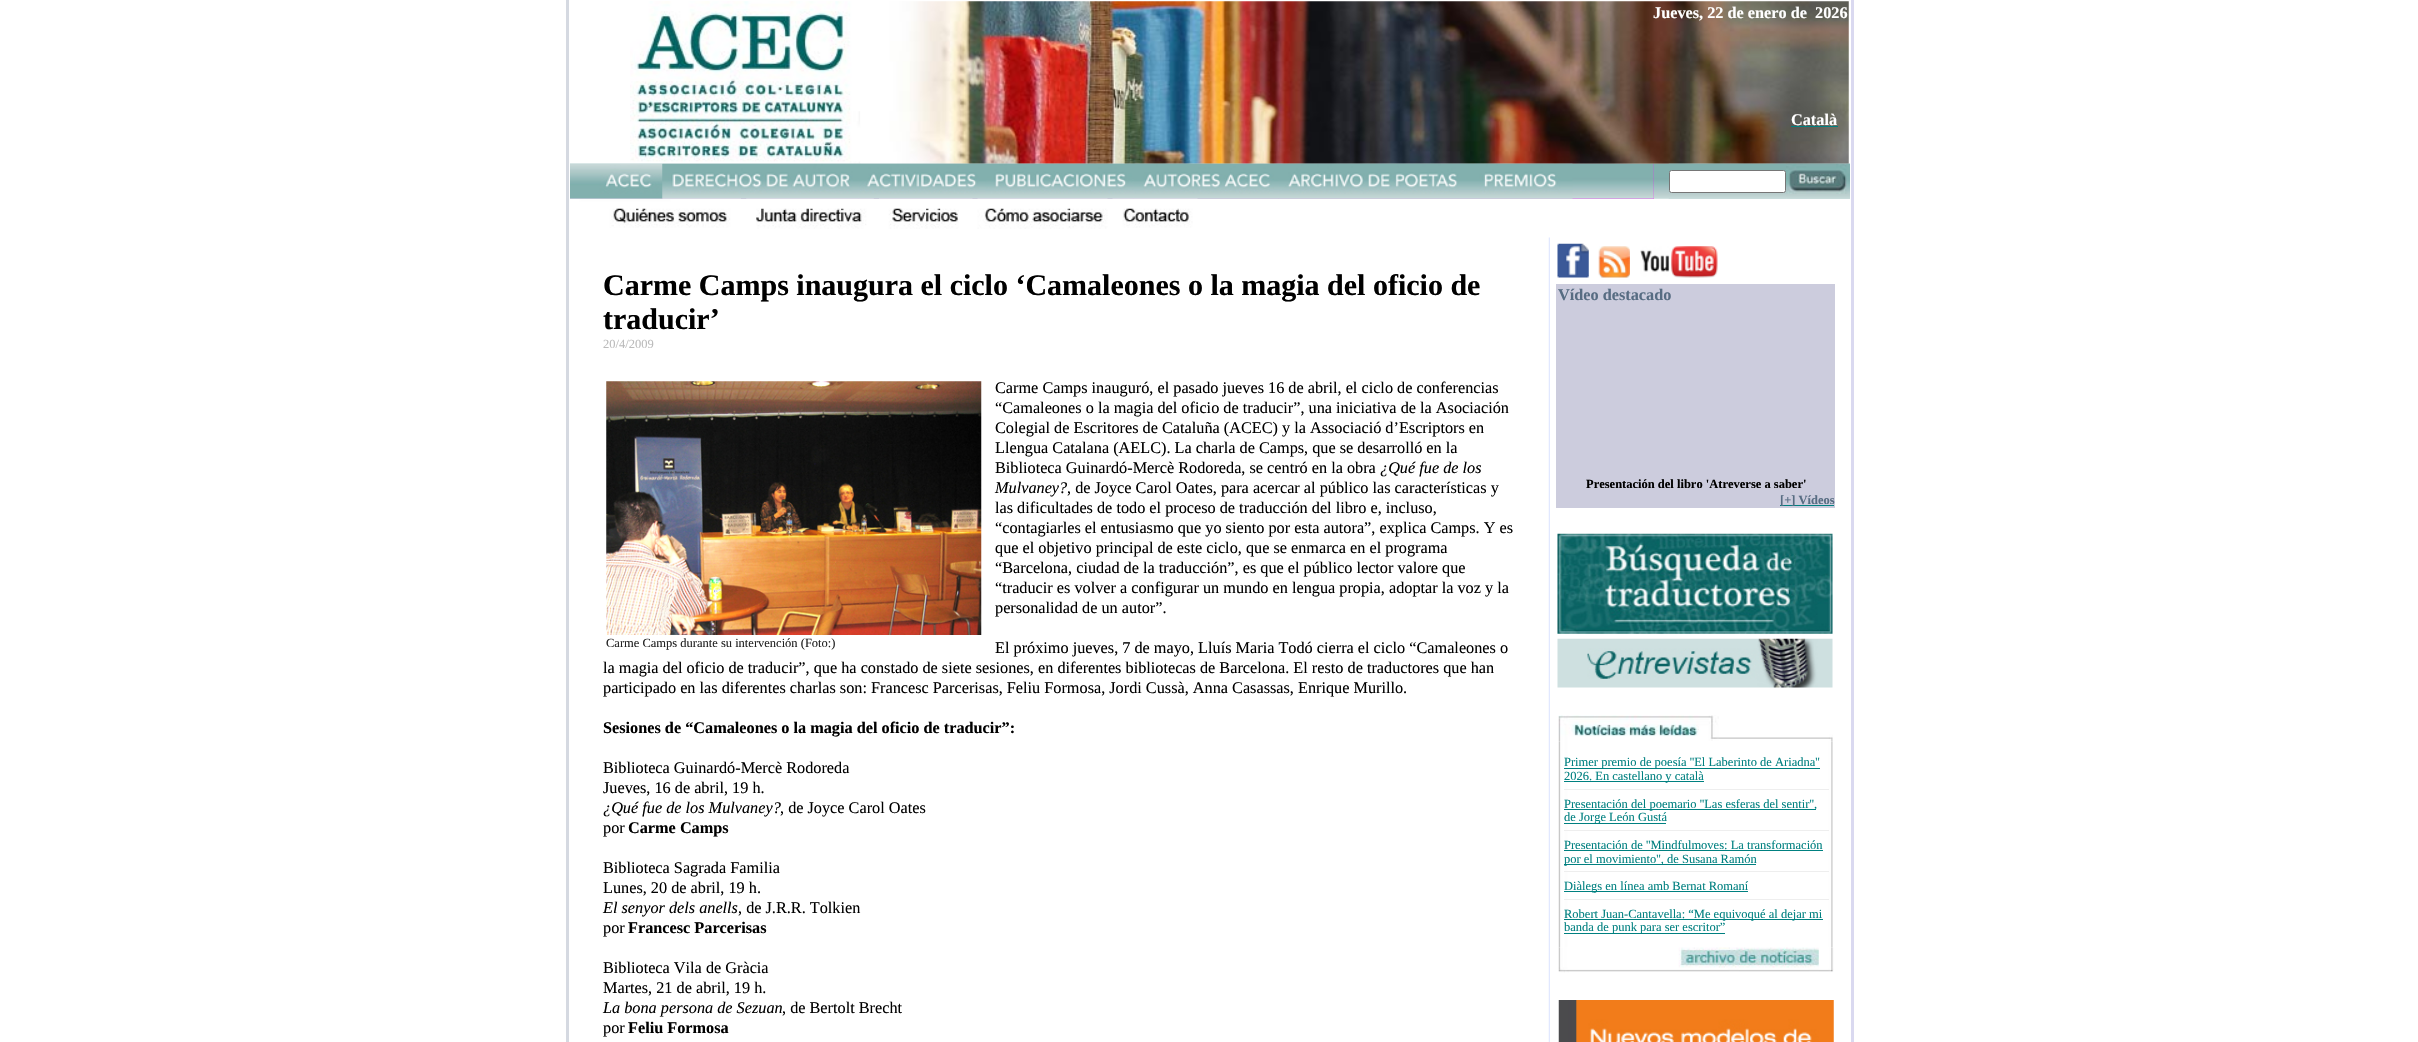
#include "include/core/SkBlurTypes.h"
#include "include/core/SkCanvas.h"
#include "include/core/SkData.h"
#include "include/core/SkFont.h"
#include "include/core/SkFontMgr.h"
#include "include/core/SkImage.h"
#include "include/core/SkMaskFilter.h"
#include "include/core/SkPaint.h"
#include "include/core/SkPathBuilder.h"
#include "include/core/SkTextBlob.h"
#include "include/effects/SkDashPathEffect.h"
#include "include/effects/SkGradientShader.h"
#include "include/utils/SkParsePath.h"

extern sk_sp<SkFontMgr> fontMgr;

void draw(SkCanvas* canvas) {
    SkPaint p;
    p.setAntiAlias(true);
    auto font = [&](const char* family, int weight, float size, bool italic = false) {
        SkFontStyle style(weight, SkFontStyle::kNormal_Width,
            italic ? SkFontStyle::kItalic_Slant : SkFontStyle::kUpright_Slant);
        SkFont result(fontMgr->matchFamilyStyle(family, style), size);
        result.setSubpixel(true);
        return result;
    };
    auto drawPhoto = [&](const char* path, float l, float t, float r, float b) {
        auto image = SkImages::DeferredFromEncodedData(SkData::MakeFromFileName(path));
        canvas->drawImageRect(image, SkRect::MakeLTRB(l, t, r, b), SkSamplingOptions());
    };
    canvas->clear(0xFFFFFFFF);
    p.setColor(0xFFD5D9E1);
    canvas->drawRect(SkRect::MakeLTRB(566, 0, 569, 1042), p);
    drawPhoto("media/1.png", 630, 1, 1849, 164);
    auto font1 = font("Liberation Serif", 700, 16.25f);
    p.setColor(0xFFFFFFFF);
    {
        const struct { const char* s; float x, y; } items[] = {
            {"Jueves, 22 de enero de", 1653, 18},
            {"2026", 1815, 18},
            {"Català", 1791, 125},
        };
        for (auto [s, x, y] : items) {
            canvas->drawString(s, x, y, font1, p);
        }
    }
    p.setColor(0xFF008080);
    canvas->drawRect(SkRect::MakeLTRB(1791, 126, 1838, 127), p);
    p.setColor(0xFFFF00FF);
    canvas->drawRect(SkRect::MakeLTRB(570, 164, 1654, 199), p);
    drawPhoto("media/2.png", 570, 163, 1654, 199);
    drawPhoto("media/3.png", 570, 163, 663, 199);
    drawPhoto("media/4.png", 662, 163, 859, 199);
    drawPhoto("media/5.png", 858, 163, 985, 199);
    drawPhoto("media/6.png", 985, 163, 1134, 199);
    drawPhoto("media/7.png", 1133, 163, 1279, 199);
    drawPhoto("media/8.png", 1278, 163, 1470, 199);
    drawPhoto("media/9.png", 1470, 163, 1573, 199);
    drawPhoto("media/10.png", 1653, 163, 1850, 199);
    drawPhoto("media/11.png", 1668, 163, 1786, 199);
    p.setColor(0xFFFFFFFF);
    canvas->drawRoundRect(SkRect::MakeLTRB(1669.5f, 170.5f, 1785.5f, 192.5f), 2, 2, p);
    p.setStyle(SkPaint::kStroke_Style);
    p.setStrokeWidth(1);
    p.setColor(0xFF767676);
    canvas->drawRoundRect(SkRect::MakeLTRB(1669.5f, 170.5f, 1785.5f, 192.5f), 2, 2, p);
    drawPhoto("media/12.png", 1786, 163, 1850, 199);
    drawPhoto("media/13.png", 570, 198, 741, 228);
    drawPhoto("media/14.png", 746, 198, 874, 229);
    drawPhoto("media/15.png", 879, 198, 973, 229);
    drawPhoto("media/16.png", 977, 198, 1108, 229);
    drawPhoto("media/17.png", 1112, 198, 1198, 228);
    auto font2 = font("Liberation Serif", 700, 30);
    p.setStyle(SkPaint::kFill_Style);
    p.setColor(0xFF000000);
    canvas->drawString("Carme Camps inaugura el ciclo ‘Camaleones o la magia del oficio de", 603, 295, font2, p);
    canvas->drawString("traducir’", 603, 329, font2, p);
    auto font3 = font("Liberation Serif", 400, 12.5f);
    p.setColor(0xFFBBBBBB);
    canvas->drawString("20/4/2009", 603, 348, font3, p);
    auto font4 = font("Liberation Serif", 400, 16.25f);
    p.setColor(0xFF000000);
    {
        const struct { const char* s; float x, y; } items[] = {
            {"Carme Camps inauguró, el pasado jueves 16 de abril, el ciclo de conferencias", 995, 393},
            {"“Camaleones o la magia del oficio de traducir”, una iniciativa de la Asociación", 995, 413},
            {"Colegial de Escritores de Cataluña (ACEC) y la Associació d’Escriptors en", 995, 433},
            {"Llengua Catalana (AELC). La charla de Camps, que se desarrolló en la", 995, 453},
            {"Biblioteca Guinardó-Mercè Rodoreda, se centró en la obra", 995, 473},
        };
        for (auto [s, x, y] : items) {
            canvas->drawString(s, x, y, font4, p);
        }
    }
    auto font5 = font("Liberation Serif", 400, 16.25f, true);
    canvas->drawString("¿Qué fue de los", 1380, 473, font5, p);
    canvas->drawString("Mulvaney?", 995, 493, font5, p);
    {
        const struct { const char* s; float x, y; } items[] = {
            {", de Joyce Carol Oates, para acercar al público las características y", 1067, 493},
            {"las dificultades de todo el proceso de traducción del libro e, incluso,", 995, 513},
            {"“contagiarles el entusiasmo que yo siento por esta autora”, explica Camps. Y es", 995, 533},
            {"que el objetivo principal de este ciclo, que se enmarca en el programa", 995, 553},
            {"“Barcelona, ciudad de la traducción”, es que el público lector valore que", 995, 573},
            {"“traducir es volver a configurar un mundo en lengua propia, adoptar la voz y la", 995, 593},
            {"personalidad de un autor”.", 995, 613},
        };
        for (auto [s, x, y] : items) {
            canvas->drawString(s, x, y, font4, p);
        }
    }
    drawPhoto("media/18.png", 606, 381, 982, 635);
    p.setColor(0xFF222222);
    canvas->drawString("Carme Camps durante su intervención (Foto:)", 606, 647, font3, p);
    p.setColor(0xFF000000);
    {
        const struct { const char* s; float x, y; } items[] = {
            {"El próximo jueves, 7 de mayo, Lluís Maria Todó cierra el ciclo “Camaleones o", 995, 653},
            {"la magia del oficio de traducir”, que ha constado de siete sesiones, en diferentes bibliotecas de Barcelona. El resto de traductores que han", 603, 673},
            {"participado en las diferentes charlas son: Francesc Parcerisas, Feliu Formosa, Jordi Cussà, Anna Casassas, Enrique Murillo.", 603, 693},
        };
        for (auto [s, x, y] : items) {
            canvas->drawString(s, x, y, font4, p);
        }
    }
    canvas->drawString("Sesiones de “Camaleones o la magia del oficio de traducir”:", 603, 733, font1, p);
    canvas->drawString("Biblioteca Guinardó-Mercè Rodoreda", 603, 773, font4, p);
    canvas->drawString("Jueves, 16 de abril, 19 h.", 603, 793, font4, p);
    canvas->drawString("¿Qué fue de los Mulvaney?", 603, 813, font5, p);
    canvas->drawString(", de Joyce Carol Oates", 780, 813, font4, p);
    canvas->drawString("por", 603, 833, font4, p);
    canvas->drawString("Carme Camps", 628, 833, font1, p);
    canvas->drawString("Biblioteca Sagrada Familia", 603, 873, font4, p);
    canvas->drawString("Lunes, 20 de abril, 19 h.", 603, 893, font4, p);
    canvas->drawString("El senyor dels anells", 603, 913, font5, p);
    canvas->drawString(", de J.R.R. Tolkien", 738, 913, font4, p);
    canvas->drawString("por", 603, 933, font4, p);
    canvas->drawString("Francesc Parcerisas", 628, 933, font1, p);
    canvas->drawString("Biblioteca Vila de Gràcia", 603, 973, font4, p);
    canvas->drawString("Martes, 21 de abril, 19 h.", 603, 993, font4, p);
    canvas->drawString("La bona persona de Sezuan", 603, 1013, font5, p);
    canvas->drawString(", de Bertolt Brecht", 782, 1013, font4, p);
    canvas->drawString("por", 603, 1033, font4, p);
    canvas->drawString("Feliu Formosa", 628, 1033, font1, p);
    drawPhoto("media/19.png", 1548, 237, 1550, 1042);
    drawPhoto("media/20.png", 1557, 243, 1589, 278);
    drawPhoto("media/21.png", 1598, 246, 1630, 278);
    drawPhoto("media/22.png", 1640, 246, 1718, 278);
    p.setColor(0xFFCCCCDD);
    canvas->drawRect(SkRect::MakeLTRB(1556, 284, 1835, 508), p);
    p.setColor(0xFF576C82);
    canvas->drawString("Vídeo destacado", 1558, 300, font1, p);
    auto font6 = font("Liberation Serif", 700, 12.5f);
    p.setColor(0xFF000000);
    canvas->drawString("Presentación del libro 'Atreverse a saber'", 1586, 488, font6, p);
    p.setColor(0xFF008080);
    canvas->drawRect(SkRect::MakeLTRB(1780, 505, 1834, 506), p);
    p.setColor(0xFF576C82);
    canvas->drawString("[+] Vídeos", 1780, 504, font6, p);
    drawPhoto("media/23.png", 1557, 533, 1833, 634);
    drawPhoto("media/24.png", 1557, 638, 1833, 688);
    drawPhoto("media/25.png", 1558, 715, 1833, 741);
    drawPhoto("media/26.png", 1558, 741, 1833, 948);
    p.setColor(0xFF008080);
    canvas->drawRect(SkRect::MakeLTRB(1564, 768, 1820, 769), p);
    canvas->drawString("Primer premio de poesía ''El Laberinto de Ariadna''", 1564, 766, font3, p);
    canvas->drawRect(SkRect::MakeLTRB(1564, 781, 1704, 782), p);
    canvas->drawString("2026. En castellano y català", 1564, 780, font3, p);
    p.setColor(0xFFEEEEEE);
    canvas->drawRect(SkRect::MakeLTRB(1564, 789, 1829, 790), p);
    p.setColor(0xFF008080);
    canvas->drawRect(SkRect::MakeLTRB(1564, 809, 1816, 810), p);
    canvas->drawString("Presentación del poemario ''Las esferas del sentir'',", 1564, 808, font3, p);
    canvas->drawRect(SkRect::MakeLTRB(1564, 823, 1666, 824), p);
    canvas->drawString("de Jorge León Gustá", 1564, 821, font3, p);
    p.setColor(0xFFEEEEEE);
    canvas->drawRect(SkRect::MakeLTRB(1564, 830, 1829, 831), p);
    p.setColor(0xFF008080);
    canvas->drawString("Presentación de ''Mindfulmoves: La transformación", 1564, 849, font3, p);
    canvas->drawRect(SkRect::MakeLTRB(1564, 850, 1823, 851), p);
    canvas->drawRect(SkRect::MakeLTRB(1564, 864, 1756, 865), p);
    canvas->drawString("por el movimiento'', de Susana Ramón", 1564, 863, font3, p);
    p.setColor(0xFFEEEEEE);
    canvas->drawRect(SkRect::MakeLTRB(1564, 871, 1829, 872), p);
    p.setColor(0xFF008080);
    canvas->drawRect(SkRect::MakeLTRB(1564, 891, 1748, 892), p);
    canvas->drawString("Diàlegs en línea amb Bernat Romaní", 1564, 890, font3, p);
    p.setColor(0xFFEEEEEE);
    canvas->drawRect(SkRect::MakeLTRB(1564, 899, 1829, 900), p);
    p.setColor(0xFF008080);
    canvas->drawRect(SkRect::MakeLTRB(1564, 919, 1823, 920), p);
    canvas->drawString("Robert Juan-Cantavella: “Me equivoqué al dejar mi", 1564, 918, font3, p);
    canvas->drawRect(SkRect::MakeLTRB(1564, 933, 1725, 934), p);
    canvas->drawString("banda de punk para ser escritor”", 1564, 931, font3, p);
    drawPhoto("media/27.png", 1558, 947, 1834, 973);
    drawPhoto("media/28.png", 1558, 1000, 1834, 1042);
    p.setColor(0xFFDAD9F0);
    canvas->drawRect(SkRect::MakeLTRB(1851, 0, 1854, 1042), p);
}
